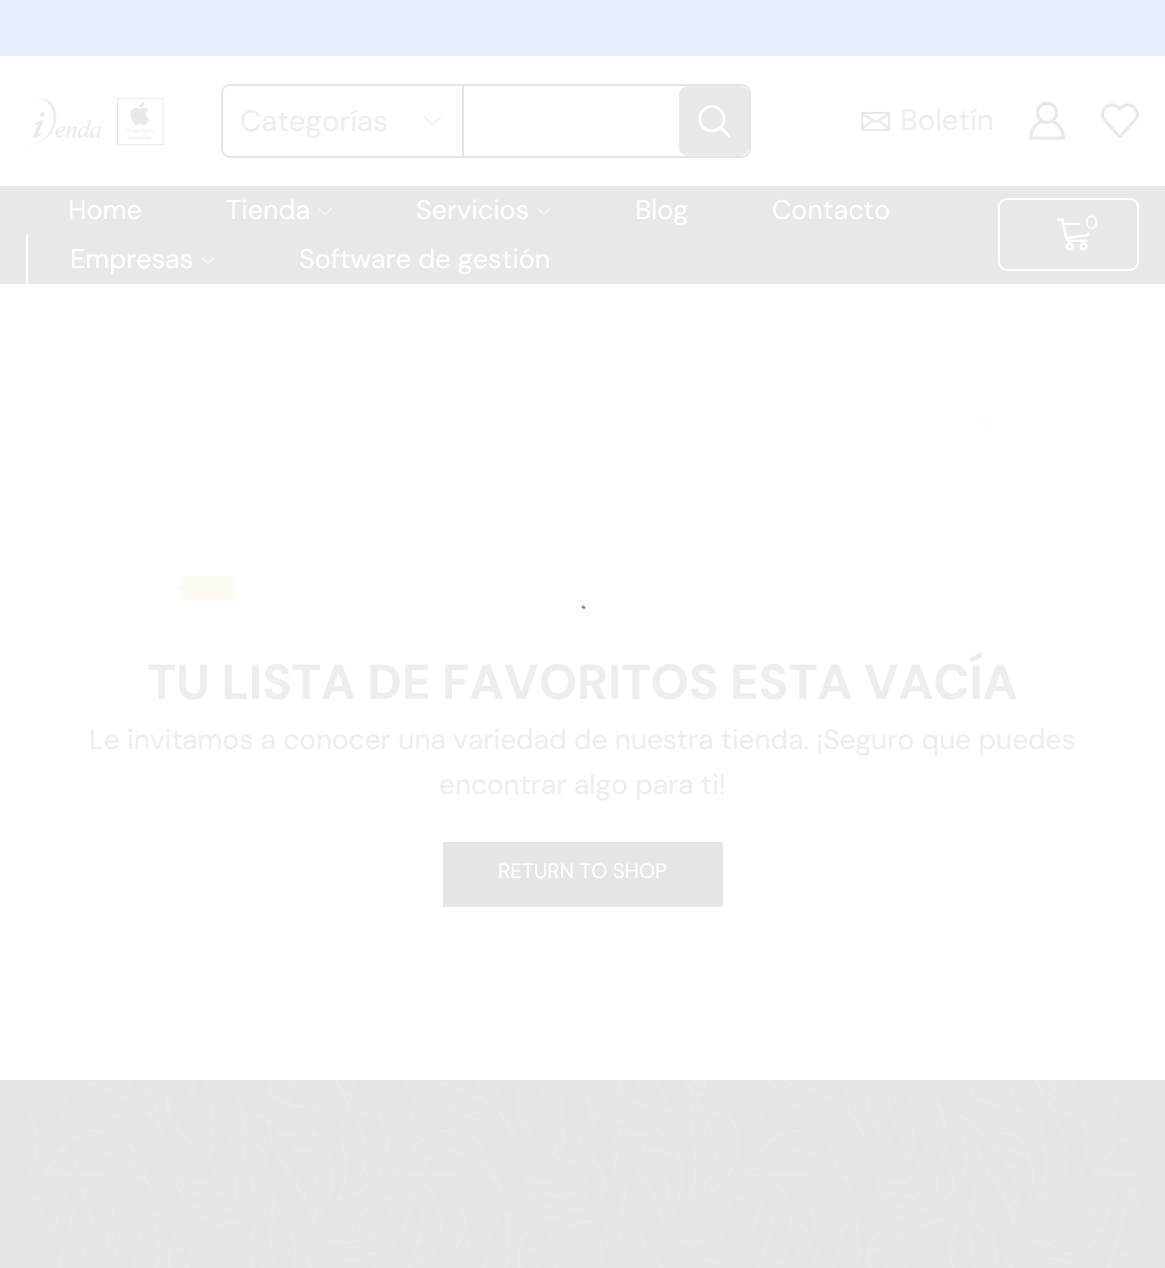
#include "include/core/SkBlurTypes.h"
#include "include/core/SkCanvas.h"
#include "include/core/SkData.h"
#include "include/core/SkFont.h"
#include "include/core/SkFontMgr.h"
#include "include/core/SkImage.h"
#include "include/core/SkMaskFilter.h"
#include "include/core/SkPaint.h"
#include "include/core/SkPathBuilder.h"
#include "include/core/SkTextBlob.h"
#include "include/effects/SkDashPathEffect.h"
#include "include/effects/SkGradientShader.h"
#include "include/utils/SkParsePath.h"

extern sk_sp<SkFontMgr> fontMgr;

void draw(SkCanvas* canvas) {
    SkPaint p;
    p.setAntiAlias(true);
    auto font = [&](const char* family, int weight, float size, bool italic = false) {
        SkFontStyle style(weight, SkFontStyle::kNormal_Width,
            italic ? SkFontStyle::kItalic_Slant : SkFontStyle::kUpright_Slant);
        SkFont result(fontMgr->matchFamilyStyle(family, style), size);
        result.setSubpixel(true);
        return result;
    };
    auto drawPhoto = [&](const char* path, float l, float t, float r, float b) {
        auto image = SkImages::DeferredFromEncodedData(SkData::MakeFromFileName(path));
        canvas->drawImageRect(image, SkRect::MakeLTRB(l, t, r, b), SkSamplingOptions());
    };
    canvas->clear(0xFFFFFFFF);
    p.setColor(0xFFE7EFFD);
    canvas->drawRect(SkRect::MakeLTRB(0, 0, 1165, 56), p);
    drawPhoto("media/1.png", 29, 97, 165, 146);
    p.setStyle(SkPaint::kStroke_Style);
    p.setStrokeWidth(2);
    p.setColor(0xFFE6E6E6);
    canvas->drawRoundRect(SkRect::MakeLTRB(222, 85, 750, 157), 8, 8, p);
    drawPhoto("media/2.png", 423, 116, 441, 126);
    p.setStyle(SkPaint::kFill_Style);
    canvas->drawRect(SkRect::MakeLTRB(462, 86, 464, 156), p);
    auto font1 = font("DM Sans", 400, 29.5f);
    p.setColor(0xFFEEEEEE);
    canvas->drawString("Categorías", 240, 131, font1, p);
    p.setColor(0xFFE9E9E9);
    canvas->drawRoundRect(SkRect::MakeLTRB(679, 86, 749, 156), 9, 9, p);
    drawPhoto("media/3.png", 698, 105, 730, 137);
    drawPhoto("media/4.png", 861, 111, 891, 132);
    p.setColor(0xFFEEEEEE);
    canvas->drawString("Boletín", 900, 130, font1, p);
    drawPhoto("media/5.png", 1029, 101, 1066, 140);
    drawPhoto("media/6.png", 1100, 103, 1139, 138);
    p.setColor(0xFFE9E9E9);
    canvas->drawRect(SkRect::MakeLTRB(0, 186, 1165, 284), p);
    auto font2 = font("DM Sans", 400, 27);
    p.setColor(0xFFFFFFFF);
    canvas->drawString("Home", 68, 219, font2, p);
    canvas->drawString("Tienda", 226, 219, font2, p);
    drawPhoto("media/7.png", 319, 208, 332, 215);
    canvas->drawString("Servicios", 416, 219, font2, p);
    drawPhoto("media/8.png", 537, 208, 551, 215);
    canvas->drawString("Blog", 635, 219, font2, p);
    canvas->drawString("Contacto", 772, 219, font2, p);
    canvas->drawRect(SkRect::MakeLTRB(26, 235, 28, 284), p);
    canvas->drawString("Empresas", 70, 268, font2, p);
    drawPhoto("media/8.png", 201, 257, 215, 264);
    canvas->drawString("Software de gestión", 299, 268, font2, p);
    p.setStyle(SkPaint::kStroke_Style);
    canvas->drawRoundRect(SkRect::MakeLTRB(999, 199, 1138, 270), 8, 8, p);
    drawPhoto("media/9.png", 1057, 218, 1090, 251);
    p.setStyle(SkPaint::kFill_Style);
    p.setColor(0xFFE9E9E9);
    canvas->drawRoundRect(SkRect::MakeLTRB(1080, 212, 1103, 233), 10.5f, 10.5f, p);
    auto font3 = font("DM Sans", 400, 19);
    p.setColor(0xFFFFFFFF);
    canvas->drawString("0", 1085, 229, font3, p);
    drawPhoto("media/10.png", 978, 419, 991, 426);
    p.setColor(0xFFFDFBF4);
    canvas->drawRoundRect(SkRect::MakeLTRB(182, 576, 236, 600), 4, 4, p);
    canvas->drawPath(SkPathBuilder().moveTo(182, 583).lineTo(182, 593).lineTo(177, 588).close().detach(), p);
    auto font4 = font("DM Sans", 700, 49);
    p.setColor(0xFFEEEEEE);
    canvas->drawString("TU LISTA DE FAVORITOS ESTA VACÍA", 147, 699, font4, p);
    auto font5 = font("DM Sans", 400, 28);
    canvas->drawString("Le invitamos a conocer una variedad de nuestra tienda. ¡Seguro que puedes", 89, 749, font5, p);
    canvas->drawString("encontrar algo para ti!", 439, 794, font5, p);
    p.setColor(0xFFE6E6E6);
    canvas->drawRect(SkRect::MakeLTRB(443, 842, 723, 907), p);
    auto font6 = font("DM Sans", 400, 20.75f);
    p.setColor(0xFFFFFFFF);
    canvas->drawString("RETURN TO SHOP", 498, 878, font6, p);
    p.setColor(0xFFE7E7E7);
    canvas->drawRect(SkRect::MakeLTRB(0, 1080, 1165, 1268), p);
    drawPhoto("media/11.png", 26, 1080, 1140, 1268);
    p.setStyle(SkPaint::kStroke_Style);
    p.setStrokeWidth(2.8f);
    p.setStrokeCap(SkPaint::kRound_Cap);
    p.setColor(0xFF888888);
    canvas->drawPath(SkPathBuilder().moveTo(583, 607).lineTo(584, 607.5f).detach(), p);
}
